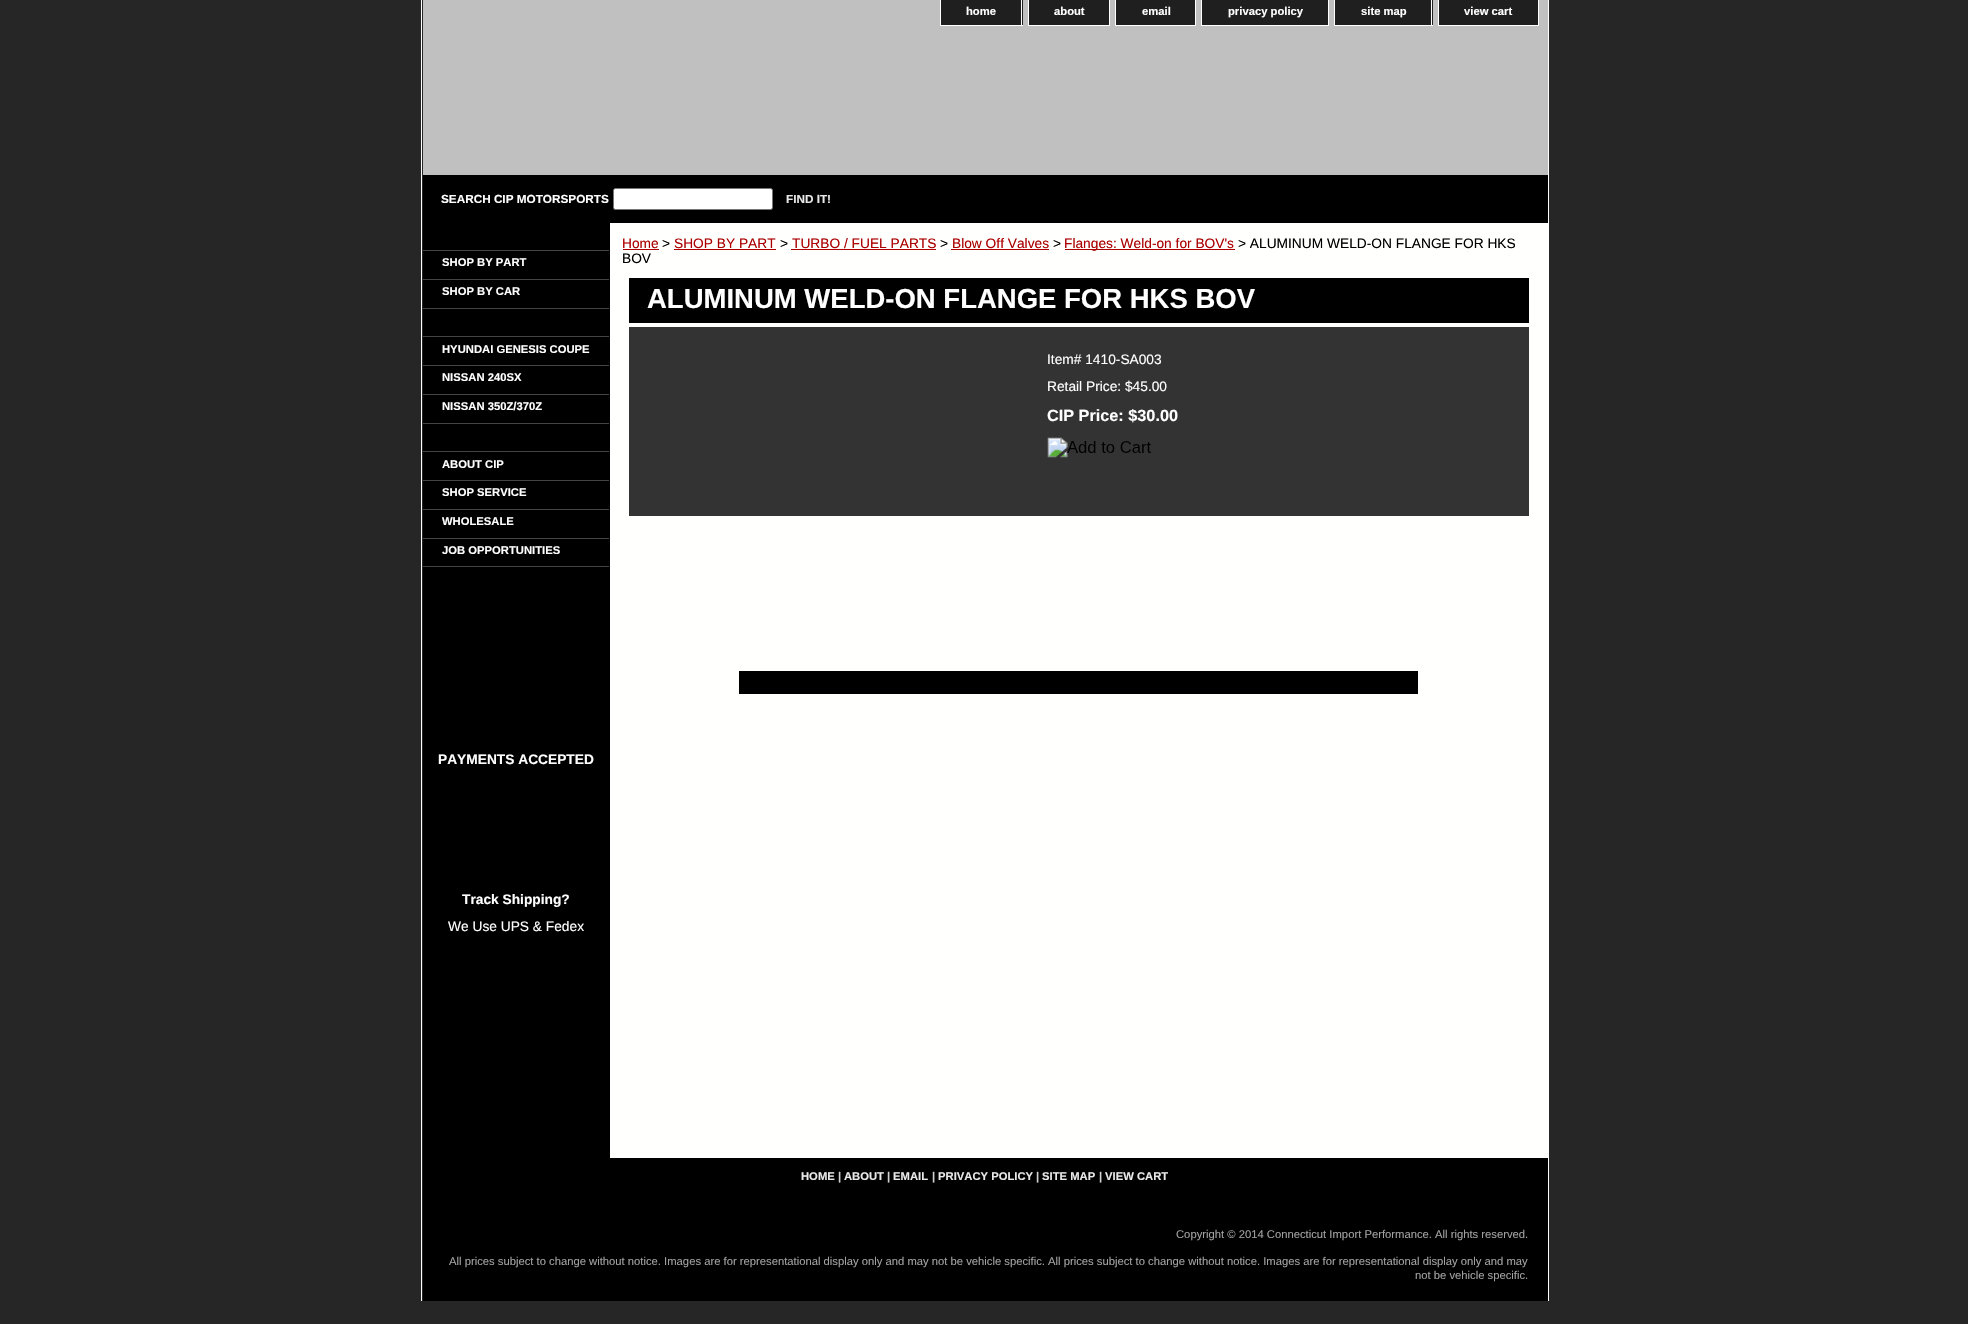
#include "include/core/SkBlurTypes.h"
#include "include/core/SkCanvas.h"
#include "include/core/SkData.h"
#include "include/core/SkFont.h"
#include "include/core/SkFontMgr.h"
#include "include/core/SkImage.h"
#include "include/core/SkMaskFilter.h"
#include "include/core/SkPaint.h"
#include "include/core/SkPathBuilder.h"
#include "include/core/SkTextBlob.h"
#include "include/effects/SkDashPathEffect.h"
#include "include/effects/SkGradientShader.h"
#include "include/utils/SkParsePath.h"

extern sk_sp<SkFontMgr> fontMgr;

void draw(SkCanvas* canvas) {
    SkPaint p;
    p.setAntiAlias(true);
    auto font = [&](const char* family, int weight, float size, bool italic = false) {
        SkFontStyle style(weight, SkFontStyle::kNormal_Width,
            italic ? SkFontStyle::kItalic_Slant : SkFontStyle::kUpright_Slant);
        SkFont result(fontMgr->matchFamilyStyle(family, style), size);
        result.setSubpixel(true);
        return result;
    };
    auto drawPhoto = [&](const char* path, float l, float t, float r, float b) {
        auto image = SkImages::DeferredFromEncodedData(SkData::MakeFromFileName(path));
        canvas->drawImageRect(image, SkRect::MakeLTRB(l, t, r, b), SkSamplingOptions());
    };
    canvas->clear(0xFF262626);
    {
        const struct { float l, t, r, b; SkColor color; } items[] = {
            {610, 223, 1548, 1158, 0xFFFFFFFE},
            {1548, 0, 1549, 1301, 0xFFFEFEFE},
            {421, 0, 422, 1301, 0xFFFEFEFE},
            {423, 0, 1548, 175, 0xFFC0C0C0},
            {941, 0, 1023, 25, 0xFF1F1F1F},
            {1021, 0, 1022, 26, 0xFFFFFFFF},
            {940, 25, 1023, 26, 0xFFFFFFFF},
            {940, 0, 941, 26, 0xFFFFFFFF},
        };
        for (auto [l, t, r, b, color] : items) {
            p.setColor(color);
            canvas->drawRect(SkRect::MakeLTRB(l, t, r, b), p);
        }
    }
    auto font1 = font("Liberation Sans", 700, 11.25f);
    canvas->drawString("home", 966, 15, font1, p);
    {
        const struct { float l, t, r, b; SkColor color; } items[] = {
            {1029, 0, 1109, 25, 0xFF1F1F1F},
            {1109, 0, 1110, 26, 0xFFFFFFFF},
            {1028, 25, 1110, 26, 0xFFFFFFFF},
            {1028, 0, 1029, 26, 0xFFFFFFFF},
        };
        for (auto [l, t, r, b, color] : items) {
            p.setColor(color);
            canvas->drawRect(SkRect::MakeLTRB(l, t, r, b), p);
        }
    }
    canvas->drawString("about", 1054, 15, font1, p);
    {
        const struct { float l, t, r, b; SkColor color; } items[] = {
            {1116, 0, 1195, 25, 0xFF1F1F1F},
            {1195, 0, 1196, 26, 0xFFFFFFFF},
            {1115, 25, 1196, 26, 0xFFFFFFFF},
            {1115, 0, 1116, 26, 0xFFFFFFFF},
        };
        for (auto [l, t, r, b, color] : items) {
            p.setColor(color);
            canvas->drawRect(SkRect::MakeLTRB(l, t, r, b), p);
        }
    }
    canvas->drawString("email", 1142, 15, font1, p);
    {
        const struct { float l, t, r, b; SkColor color; } items[] = {
            {1202, 0, 1328, 25, 0xFF1F1F1F},
            {1328, 0, 1329, 26, 0xFFFFFFFF},
            {1201, 25, 1329, 26, 0xFFFFFFFF},
            {1201, 0, 1202, 26, 0xFFFFFFFF},
        };
        for (auto [l, t, r, b, color] : items) {
            p.setColor(color);
            canvas->drawRect(SkRect::MakeLTRB(l, t, r, b), p);
        }
    }
    canvas->drawString("privacy policy", 1228, 15, font1, p);
    {
        const struct { float l, t, r, b; SkColor color; } items[] = {
            {1335, 0, 1433, 25, 0xFF1F1F1F},
            {1431, 0, 1432, 26, 0xFFFFFFFF},
            {1334, 25, 1433, 26, 0xFFFFFFFF},
            {1334, 0, 1335, 26, 0xFFFFFFFF},
        };
        for (auto [l, t, r, b, color] : items) {
            p.setColor(color);
            canvas->drawRect(SkRect::MakeLTRB(l, t, r, b), p);
        }
    }
    canvas->drawString("site map", 1361, 15, font1, p);
    {
        const struct { float l, t, r, b; SkColor color; } items[] = {
            {1439, 0, 1538, 25, 0xFF1F1F1F},
            {1538, 0, 1539, 26, 0xFFFFFFFF},
            {1438, 25, 1539, 26, 0xFFFFFFFF},
            {1438, 0, 1439, 26, 0xFFFFFFFF},
        };
        for (auto [l, t, r, b, color] : items) {
            p.setColor(color);
            canvas->drawRect(SkRect::MakeLTRB(l, t, r, b), p);
        }
    }
    canvas->drawString("view cart", 1464, 15, font1, p);
    p.setColor(0xFF000000);
    canvas->drawRect(SkRect::MakeLTRB(423, 175, 1548, 223), p);
    auto font2 = font("Liberation Sans", 700, 11.75f);
    p.setColor(0xFFFFFFFF);
    canvas->drawString("SEARCH CIP MOTORSPORTS", 441, 203, font2, p);
    canvas->drawRoundRect(SkRect::MakeLTRB(613.5f, 188.5f, 772.5f, 209.5f), 2, 2, p);
    p.setStyle(SkPaint::kStroke_Style);
    p.setStrokeWidth(1);
    p.setColor(0xFF767676);
    canvas->drawRoundRect(SkRect::MakeLTRB(613.5f, 188.5f, 772.5f, 209.5f), 2, 2, p);
    p.setStyle(SkPaint::kFill_Style);
    p.setColor(0xFFE9E9E9);
    canvas->drawString("FIND IT!", 786, 203, font2, p);
    {
        const struct { float l, t, r, b; SkColor color; } items[] = {
            {423, 223, 610, 1158, 0xFF000000},
            {423, 250, 609, 251, 0xFF444444},
            {423, 279, 609, 280, 0xFF444444},
        };
        for (auto [l, t, r, b, color] : items) {
            p.setColor(color);
            canvas->drawRect(SkRect::MakeLTRB(l, t, r, b), p);
        }
    }
    p.setColor(0xFFFFFFFF);
    canvas->drawString("SHOP BY PART", 442, 266, font1, p);
    p.setColor(0xFF444444);
    canvas->drawRect(SkRect::MakeLTRB(423, 308, 609, 309), p);
    p.setColor(0xFFFFFFFF);
    canvas->drawString("SHOP BY CAR", 442, 295, font1, p);
    p.setColor(0xFF444444);
    canvas->drawRect(SkRect::MakeLTRB(423, 336, 609, 337), p);
    canvas->drawRect(SkRect::MakeLTRB(423, 365, 609, 366), p);
    p.setColor(0xFFFFFFFF);
    canvas->drawString("HYUNDAI GENESIS COUPE", 442, 353, font1, p);
    p.setColor(0xFF444444);
    canvas->drawRect(SkRect::MakeLTRB(423, 394, 609, 395), p);
    p.setColor(0xFFFFFFFF);
    canvas->drawString("NISSAN 240SX", 442, 381, font1, p);
    p.setColor(0xFF444444);
    canvas->drawRect(SkRect::MakeLTRB(423, 423, 609, 424), p);
    p.setColor(0xFFFFFFFF);
    canvas->drawString("NISSAN 350Z/370Z", 442, 410, font1, p);
    p.setColor(0xFF444444);
    canvas->drawRect(SkRect::MakeLTRB(423, 451, 609, 452), p);
    canvas->drawRect(SkRect::MakeLTRB(423, 480, 609, 481), p);
    p.setColor(0xFFFFFFFF);
    canvas->drawString("ABOUT CIP", 442, 468, font1, p);
    p.setColor(0xFF444444);
    canvas->drawRect(SkRect::MakeLTRB(423, 509, 609, 510), p);
    p.setColor(0xFFFFFFFF);
    canvas->drawString("SHOP SERVICE", 442, 496, font1, p);
    p.setColor(0xFF444444);
    canvas->drawRect(SkRect::MakeLTRB(423, 538, 609, 539), p);
    p.setColor(0xFFFFFFFF);
    canvas->drawString("WHOLESALE", 442, 525, font1, p);
    p.setColor(0xFF444444);
    canvas->drawRect(SkRect::MakeLTRB(423, 566, 609, 567), p);
    p.setColor(0xFFFFFFFF);
    canvas->drawString("JOB OPPORTUNITIES", 442, 554, font1, p);
    auto font3 = font("Liberation Sans", 700, 13.75f);
    canvas->drawString("PAYMENTS ACCEPTED", 438, 764, font3, p);
    canvas->drawString("Track Shipping?", 462, 904, font3, p);
    auto font4 = font("Liberation Sans", 400, 13.75f);
    canvas->drawString("We Use UPS & Fedex", 448, 931, font4, p);
    p.setColor(0xFFAA0000);
    canvas->drawString("Home", 622, 248, font4, p);
    canvas->drawRect(SkRect::MakeLTRB(623, 249, 659, 250), p);
    p.setColor(0xFF000000);
    canvas->drawString(">", 662, 248, font4, p);
    p.setColor(0xFFAA0000);
    canvas->drawString("SHOP BY PART", 674, 248, font4, p);
    canvas->drawRect(SkRect::MakeLTRB(674, 249, 776, 250), p);
    p.setColor(0xFF000000);
    canvas->drawString(">", 780, 248, font4, p);
    p.setColor(0xFFAA0000);
    canvas->drawString("TURBO / FUEL PARTS", 792, 248, font4, p);
    canvas->drawRect(SkRect::MakeLTRB(791, 249, 936, 250), p);
    p.setColor(0xFF000000);
    canvas->drawString(">", 940, 248, font4, p);
    p.setColor(0xFFAA0000);
    canvas->drawString("Blow Off Valves", 952, 248, font4, p);
    canvas->drawRect(SkRect::MakeLTRB(951, 249, 1049, 250), p);
    p.setColor(0xFF000000);
    canvas->drawString(">", 1053, 248, font4, p);
    p.setColor(0xFFAA0000);
    canvas->drawRect(SkRect::MakeLTRB(1065, 249, 1235, 250), p);
    canvas->drawString("Flanges: Weld-on for BOV's", 1064, 248, font4, p);
    p.setColor(0xFF000000);
    canvas->drawString("> ALUMINUM WELD-ON FLANGE FOR HKS", 1238, 248, font4, p);
    canvas->drawString("BOV", 622, 263, font4, p);
    canvas->drawRect(SkRect::MakeLTRB(629, 278, 1529, 323), p);
    auto font5 = font("Liberation Sans", 700, 27.5f);
    p.setColor(0xFFFFFFFF);
    canvas->drawString("ALUMINUM WELD-ON FLANGE FOR HKS BOV", 647, 308, font5, p);
    p.setColor(0xFF333333);
    canvas->drawRect(SkRect::MakeLTRB(629, 327, 1529, 516), p);
    p.setColor(0xFFFFFFFF);
    canvas->drawString("Item# 1410-SA003", 1047, 364, font4, p);
    canvas->drawString("Retail Price: $45.00", 1047, 391, font4, p);
    auto font6 = font("Liberation Sans", 700, 16.25f);
    canvas->drawString("CIP Price: $30.00", 1047, 421, font6, p);
    drawPhoto("media/1.png", 1047, 437, 1151, 458);
    p.setColor(0xFF000000);
    canvas->drawRect(SkRect::MakeLTRB(739, 671, 1418, 694), p);
    canvas->drawRect(SkRect::MakeLTRB(423, 1158, 1548, 1301), p);
    p.setColor(0xFFE9E9E9);
    canvas->drawString("HOME", 801, 1180, font1, p);
    p.setColor(0xFFD0D0D0);
    canvas->drawString("|", 838, 1180, font1, p);
    p.setColor(0xFFE9E9E9);
    canvas->drawString("ABOUT", 844, 1180, font1, p);
    p.setColor(0xFFD0D0D0);
    canvas->drawString("|", 887, 1180, font1, p);
    p.setColor(0xFFE9E9E9);
    canvas->drawString("EMAIL", 893, 1180, font1, p);
    p.setColor(0xFFD0D0D0);
    canvas->drawString("|", 932, 1180, font1, p);
    p.setColor(0xFFE9E9E9);
    canvas->drawString("PRIVACY POLICY", 938, 1180, font1, p);
    p.setColor(0xFFD0D0D0);
    canvas->drawString("|", 1036, 1180, font1, p);
    p.setColor(0xFFE9E9E9);
    canvas->drawString("SITE MAP", 1042, 1180, font1, p);
    p.setColor(0xFFD0D0D0);
    canvas->drawString("|", 1099, 1180, font1, p);
    p.setColor(0xFFE9E9E9);
    canvas->drawString("VIEW CART", 1105, 1180, font1, p);
    auto font7 = font("Liberation Sans", 400, 11.25f);
    p.setColor(0xFFA2A2A2);
    {
        const struct { const char* s; float x, y; } items[] = {
            {"Copyright © 2014 Connecticut Import Performance. All rights reserved.", 1176, 1238},
            {"All prices subject to change without notice. Images are for representational display only and may not be vehicle specific. All prices subject to change without notice. Images are for representational display only and may", 449, 1265},
            {"not be vehicle specific.", 1415, 1279},
        };
        for (auto [s, x, y] : items) {
            canvas->drawString(s, x, y, font7, p);
        }
    }
}
